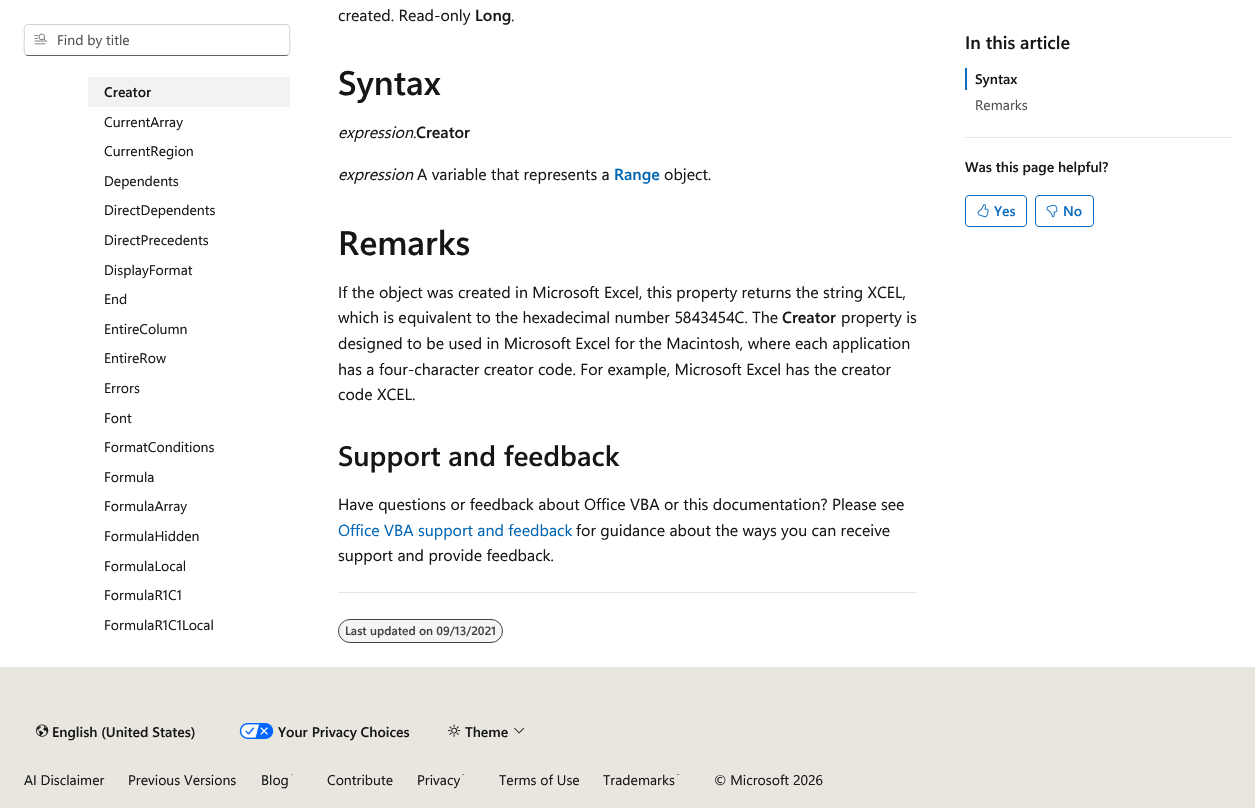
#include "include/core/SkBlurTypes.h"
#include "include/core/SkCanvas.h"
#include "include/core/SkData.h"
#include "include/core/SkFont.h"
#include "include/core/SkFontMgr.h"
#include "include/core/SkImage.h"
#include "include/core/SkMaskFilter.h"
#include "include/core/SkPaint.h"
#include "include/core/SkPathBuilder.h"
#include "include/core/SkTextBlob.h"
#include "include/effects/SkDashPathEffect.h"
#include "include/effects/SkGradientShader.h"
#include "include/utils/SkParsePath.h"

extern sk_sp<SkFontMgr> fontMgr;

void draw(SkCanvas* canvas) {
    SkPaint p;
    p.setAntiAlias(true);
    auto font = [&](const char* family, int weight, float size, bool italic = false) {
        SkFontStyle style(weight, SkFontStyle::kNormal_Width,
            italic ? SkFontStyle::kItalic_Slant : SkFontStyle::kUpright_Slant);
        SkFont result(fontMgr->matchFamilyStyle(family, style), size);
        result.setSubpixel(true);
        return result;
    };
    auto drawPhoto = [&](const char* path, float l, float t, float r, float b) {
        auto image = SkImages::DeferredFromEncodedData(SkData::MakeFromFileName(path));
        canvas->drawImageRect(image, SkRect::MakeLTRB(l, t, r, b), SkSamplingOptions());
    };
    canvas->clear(0xFFFFFFFF);
    p.setStyle(SkPaint::kStroke_Style);
    p.setStrokeWidth(1);
    p.setColor(0xFF616161);
    canvas->drawPath(SkPathBuilder().moveTo(288.5f, 54.5f).cubicTo(288, 55, 287, 55.5f, 286, 55.5f).lineTo(28, 55.5f).cubicTo(27, 55.5f, 26, 55, 25.5f, 54.5f).detach(), p);
    p.setColor(0xFFD1D1D1);
    canvas->drawPath(SkPathBuilder().moveTo(25.5f, 54.5f).cubicTo(23, 52, 24.5f, 39.5f, 24.5f, 36).cubicTo(24.5f, 33.5f, 22.5f, 24.5f, 28, 24.5f).lineTo(286, 24.5f).cubicTo(291.5f, 24.5f, 289.5f, 33.5f, 289.5f, 36).cubicTo(289.5f, 39.5f, 291, 52, 288.5f, 54.5f).detach(), p);
    drawPhoto("media/1.png", 34, 33, 47, 45);
    auto font1 = font("Segoe UI", 400, 14);
    p.setStyle(SkPaint::kFill_Style);
    p.setColor(0xFF505050);
    canvas->drawString("Find by title", 57, 45, font1, p);
    p.setColor(0xFFF2F2F2);
    canvas->drawRect(SkRect::MakeLTRB(88, 77, 290, 107), p);
    auto font2 = font("Segoe UI", 600, 14);
    p.setColor(0xFF161616);
    canvas->drawString("Creator", 104, 97, font2, p);
    {
        const struct { const char* s; float x, y; } items[] = {
            {"CurrentArray", 104, 127},
            {"CurrentRegion", 104, 156},
            {"Dependents", 104, 186},
            {"DirectDependents", 104, 215},
            {"DirectPrecedents", 104, 245},
            {"DisplayFormat", 104, 275},
            {"End", 104, 304},
            {"EntireColumn", 104, 334},
            {"EntireRow", 104, 363},
            {"Errors", 104, 393},
            {"Font", 104, 423},
            {"FormatConditions", 104, 452},
            {"Formula", 104, 482},
            {"FormulaArray", 104, 511},
            {"FormulaHidden", 104, 541},
            {"FormulaLocal", 104, 571},
            {"FormulaR1C1", 104, 600},
            {"FormulaR1C1Local", 104, 630},
        };
        for (auto [s, x, y] : items) {
            canvas->drawString(s, x, y, font1, p);
        }
    }
    auto font3 = font("Segoe UI", 400, 16);
    canvas->drawString("created. Read-only", 338, 21, font3, p);
    auto font4 = font("Segoe UI", 600, 16);
    canvas->drawString("Long", 475, 21, font4, p);
    canvas->drawString(".", 511, 21, font3, p);
    auto font5 = font("Segoe UI", 600, 34);
    canvas->drawString("Syntax", 338, 95, font5, p);
    auto font6 = font("Segoe UI", 400, 16, true);
    canvas->drawString("expression", 338, 138, font6, p);
    canvas->drawString(".", 413, 138, font3, p);
    canvas->drawString("Creator", 416, 138, font4, p);
    canvas->drawString("expression", 338, 180, font6, p);
    canvas->drawString("A variable that represents a", 417, 180, font3, p);
    p.setColor(0xFF0065B3);
    canvas->drawString("Range", 614, 180, font4, p);
    p.setColor(0xFF161616);
    canvas->drawString("object.", 664, 180, font3, p);
    canvas->drawString("Remarks", 338, 255, font5, p);
    canvas->drawString("If the object was created in Microsoft Excel, this property returns the string XCEL,", 338, 298, font3, p);
    canvas->drawString("which is equivalent to the hexadecimal number 5843454C. The", 338, 323, font3, p);
    canvas->drawString("Creator", 782, 323, font4, p);
    {
        const struct { const char* s; float x, y; } items[] = {
            {"property is", 841, 323},
            {"designed to be used in Microsoft Excel for the Macintosh, where each application", 338, 349},
            {"has a four-character creator code. For example, Microsoft Excel has the creator", 338, 375},
            {"code XCEL.", 338, 400},
        };
        for (auto [s, x, y] : items) {
            canvas->drawString(s, x, y, font3, p);
        }
    }
    auto font7 = font("Segoe UI", 600, 28);
    canvas->drawString("Support and feedback", 338, 466, font7, p);
    canvas->drawString("Have questions or feedback about Office VBA or this documentation? Please see", 338, 510, font3, p);
    p.setColor(0xFF0065B3);
    canvas->drawString("Office VBA support and feedback", 338, 536, font3, p);
    p.setColor(0xFF161616);
    canvas->drawString("for guidance about the ways you can receive", 576, 536, font3, p);
    canvas->drawString("support and provide feedback.", 338, 561, font3, p);
    p.setColor(0xFFE6E6E6);
    canvas->drawRect(SkRect::MakeLTRB(338, 592, 917, 593), p);
    p.setColor(0xFFF5F5F5);
    canvas->drawRoundRect(SkRect::MakeLTRB(338.5f, 619.5f, 502.5f, 642.5f), 11.5f, 11.5f, p);
    p.setStyle(SkPaint::kStroke_Style);
    p.setColor(0xFF424242);
    canvas->drawRoundRect(SkRect::MakeLTRB(338.5f, 619.5f, 502.5f, 642.5f), 11.5f, 11.5f, p);
    auto font8 = font("Segoe UI", 600, 12);
    p.setStyle(SkPaint::kFill_Style);
    canvas->drawString("Last updated on 09/13/2021", 345, 635, font8, p);
    p.setColor(0xFFE6E6E6);
    canvas->drawRect(SkRect::MakeLTRB(965, 137, 1231, 138), p);
    auto font9 = font("Segoe UI", 600, 18);
    p.setColor(0xFF161616);
    canvas->drawString("In this article", 965, 49, font9, p);
    p.setColor(0xFF0F6CBD);
    canvas->drawRect(SkRect::MakeLTRB(965, 68, 967, 90), p);
    p.setColor(0xFF161616);
    canvas->drawString("Syntax", 975, 84, font2, p);
    p.setColor(0xFF505050);
    canvas->drawString("Remarks", 975, 110, font1, p);
    p.setColor(0xFF161616);
    canvas->drawString("Was this page helpful?", 965, 172, font2, p);
    p.setStyle(SkPaint::kStroke_Style);
    p.setColor(0xFF0F6CBD);
    canvas->drawRoundRect(SkRect::MakeLTRB(965.5f, 195.5f, 1026.5f, 226.5f), 3.5f, 3.5f, p);
    drawPhoto("media/2.png", 977, 204, 989, 218);
    p.setStyle(SkPaint::kFill_Style);
    canvas->drawString("Yes", 994, 216, font2, p);
    p.setStyle(SkPaint::kStroke_Style);
    canvas->drawRoundRect(SkRect::MakeLTRB(1035.5f, 195.5f, 1093.5f, 226.5f), 3.5f, 3.5f, p);
    drawPhoto("media/3.png", 1046, 204, 1058, 218);
    p.setStyle(SkPaint::kFill_Style);
    canvas->drawString("No", 1063, 216, font2, p);
    p.setColor(0xFFE8E6DF);
    canvas->drawRect(SkRect::MakeLTRB(0, 668, 1255, 808), p);
    p.setColor(0xFFE6E6E6);
    canvas->drawRect(SkRect::MakeLTRB(0, 667, 1255, 668), p);
    drawPhoto("media/4.png", 36, 724, 49, 737);
    p.setColor(0xFF161616);
    canvas->drawString("English (United States)", 52, 737, font2, p);
    drawPhoto("media/5.png", 239, 723, 274, 739);
    canvas->drawString("Your Privacy Choices", 278, 737, font2, p);
    drawPhoto("media/6.png", 448, 724, 461, 737);
    canvas->drawString("Theme", 465, 737, font2, p);
    drawPhoto("media/7.png", 514, 727, 525, 734);
    {
        const struct { const char* s; float x, y; } items[] = {
            {"AI Disclaimer", 24, 785},
            {"Previous Versions", 128, 785},
            {"Blog", 261, 785},
        };
        for (auto [s, x, y] : items) {
            canvas->drawString(s, x, y, font1, p);
        }
    }
    drawPhoto("media/8.png", 291, 774, 293, 775);
    canvas->drawString("Contribute", 327, 785, font1, p);
    canvas->drawString("Privacy", 417, 785, font1, p);
    drawPhoto("media/9.png", 462, 774, 465, 775);
    canvas->drawString("Terms of Use", 499, 785, font1, p);
    canvas->drawString("Trademarks", 603, 785, font1, p);
    drawPhoto("media/9.png", 677, 774, 680, 775);
    canvas->drawString("© Microsoft 2026", 714, 785, font1, p);
}
